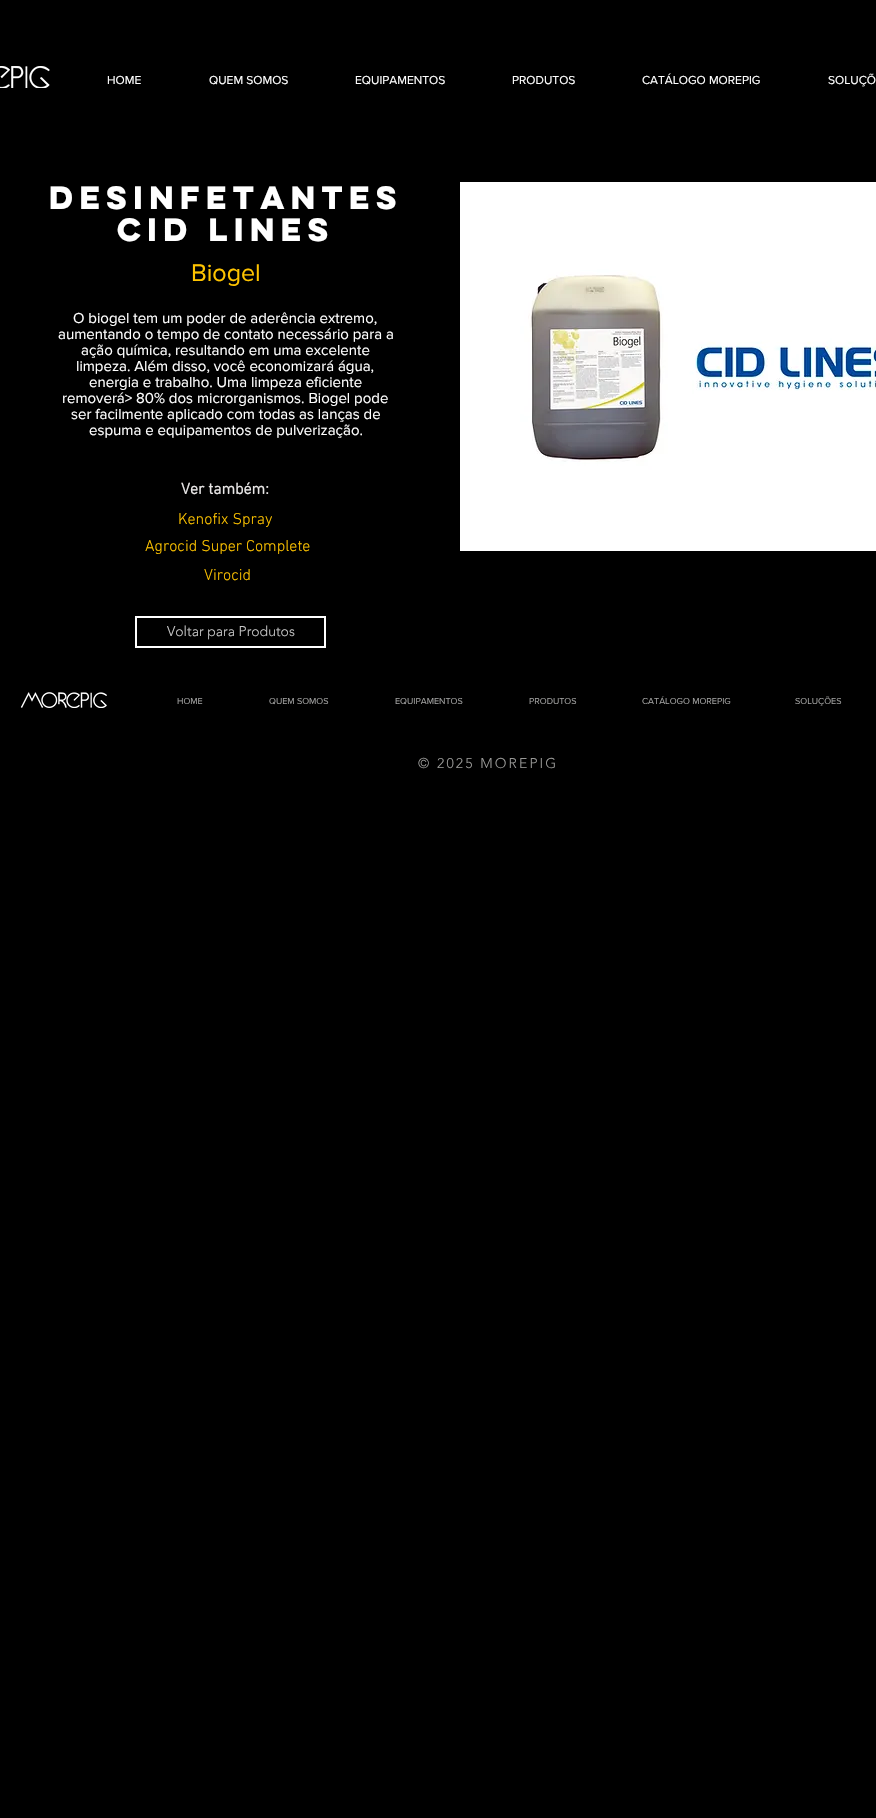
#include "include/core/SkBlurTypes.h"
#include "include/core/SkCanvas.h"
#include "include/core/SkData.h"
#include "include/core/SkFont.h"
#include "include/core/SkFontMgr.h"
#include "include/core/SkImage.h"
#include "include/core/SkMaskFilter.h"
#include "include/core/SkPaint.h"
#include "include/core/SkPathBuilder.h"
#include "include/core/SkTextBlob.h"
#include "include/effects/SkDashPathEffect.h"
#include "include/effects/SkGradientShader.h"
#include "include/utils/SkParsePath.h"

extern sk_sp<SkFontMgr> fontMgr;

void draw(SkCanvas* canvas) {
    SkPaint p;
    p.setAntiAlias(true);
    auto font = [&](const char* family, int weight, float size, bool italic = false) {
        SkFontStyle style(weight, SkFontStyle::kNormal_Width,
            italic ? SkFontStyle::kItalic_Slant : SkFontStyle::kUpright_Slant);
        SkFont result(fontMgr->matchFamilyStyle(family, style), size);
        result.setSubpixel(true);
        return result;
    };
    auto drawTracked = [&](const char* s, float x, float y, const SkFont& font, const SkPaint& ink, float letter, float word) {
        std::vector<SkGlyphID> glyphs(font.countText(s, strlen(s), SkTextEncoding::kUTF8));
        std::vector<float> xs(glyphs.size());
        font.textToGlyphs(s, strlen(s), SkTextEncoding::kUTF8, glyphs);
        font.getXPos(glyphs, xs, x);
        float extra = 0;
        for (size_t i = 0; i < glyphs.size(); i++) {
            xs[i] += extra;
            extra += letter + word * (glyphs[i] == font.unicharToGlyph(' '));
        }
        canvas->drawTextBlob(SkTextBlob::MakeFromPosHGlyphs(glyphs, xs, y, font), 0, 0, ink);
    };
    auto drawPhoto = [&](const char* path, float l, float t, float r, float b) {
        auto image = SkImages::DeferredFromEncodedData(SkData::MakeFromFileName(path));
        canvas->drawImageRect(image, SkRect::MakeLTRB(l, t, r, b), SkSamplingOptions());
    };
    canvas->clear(0xFF000000);
    drawPhoto("media/1.png", 0, 66, 50, 88);
    auto font1 = font("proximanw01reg", 400, 12);
    p.setColor(0xFFFFFFFF);
    {
        const struct { const char* s; float x, y; } items[] = {
            {"HOME", 107, 84},
            {"QUEM SOMOS", 209, 84},
            {"EQUIPAMENTOS", 355, 84},
            {"PRODUTOS", 512, 84},
            {"CATÁLOGO MOREPIG", 642, 84},
            {"SOLUÇÕ", 828, 84},
        };
        for (auto [s, x, y] : items) {
            canvas->drawString(s, x, y, font1, p);
        }
    }
    auto font2 = font("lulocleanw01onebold", 700, 29);
    canvas->drawString("Desinfetantes", 49, 209, font2, p);
    canvas->drawString("cid lines", 117, 241, font2, p);
    drawPhoto("media/2.png", 460, 182, 876, 551);
    auto font3 = font("proximanw01reg", 400, 25);
    p.setColor(0xFFFFC400);
    canvas->drawString("Biogel", 191, 281, font3, p);
    auto font4 = font("proximanw01reg", 400, 15);
    p.setColor(0xFFFFFFFF);
    {
        const struct { const char* s; float x, y; } items[] = {
            {"O biogel tem um poder de aderência extremo,", 73, 323},
            {"aumentando o tempo de contato necessário para a", 58, 339},
            {"ação química, resultando em uma excelente", 81, 355},
            {"limpeza. Além disso, você economizará água,", 76, 371},
            {"energia e trabalho. Uma limpeza eficiente", 89, 387},
            {"removerá> 80% dos microrganismos. Biogel pode", 62, 403},
            {"ser facilmente aplicado com todas as lanças de", 71, 419},
            {"espuma e equipamentos de pulverização.", 89, 435},
        };
        for (auto [s, x, y] : items) {
            canvas->drawString(s, x, y, font4, p);
        }
    }
    auto font5 = font("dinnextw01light", 700, 16);
    p.setColor(0xFFE8E6E6);
    canvas->drawString("Ver também:", 181, 494, font5, p);
    auto font6 = font("dinnextw01light", 300, 16);
    p.setColor(0xFFFFC400);
    {
        const struct { const char* s; float x, y; } items[] = {
            {"Kenofix Spray", 178, 524},
            {"Agrocid Super Complete", 145, 551},
            {"Virocid", 204, 580},
        };
        for (auto [s, x, y] : items) {
            canvas->drawString(s, x, y, font6, p);
        }
    }
    p.setStyle(SkPaint::kStroke_Style);
    p.setStrokeWidth(2);
    p.setColor(0xFFFFFFFF);
    canvas->drawRect(SkRect::MakeLTRB(136, 617, 325, 647), p);
    auto font7 = font("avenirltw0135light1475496", 300, 14);
    p.setStyle(SkPaint::kFill_Style);
    p.setColor(0xFFC7C7C7);
    canvas->drawString("Voltar para Produtos", 167, 636, font7, p);
    drawPhoto("media/3.png", 20, 692, 107, 708);
    auto font8 = font("proximanw01reg", 400, 9);
    p.setColor(0xFFA0A09F);
    {
        const struct { const char* s; float x, y; } items[] = {
            {"HOME", 177, 704},
            {"QUEM SOMOS", 269, 704},
            {"EQUIPAMENTOS", 395, 704},
            {"PRODUTOS", 529, 704},
            {"CATÁLOGO MOREPIG", 642, 704},
            {"SOLUÇÕES", 795, 704},
        };
        for (auto [s, x, y] : items) {
            canvas->drawString(s, x, y, font8, p);
        }
    }
    p.setColor(0xFF999997);
    drawTracked("© 2025 MOREPIG", 418, 768, font7, p, 2.1f, 0);
}
